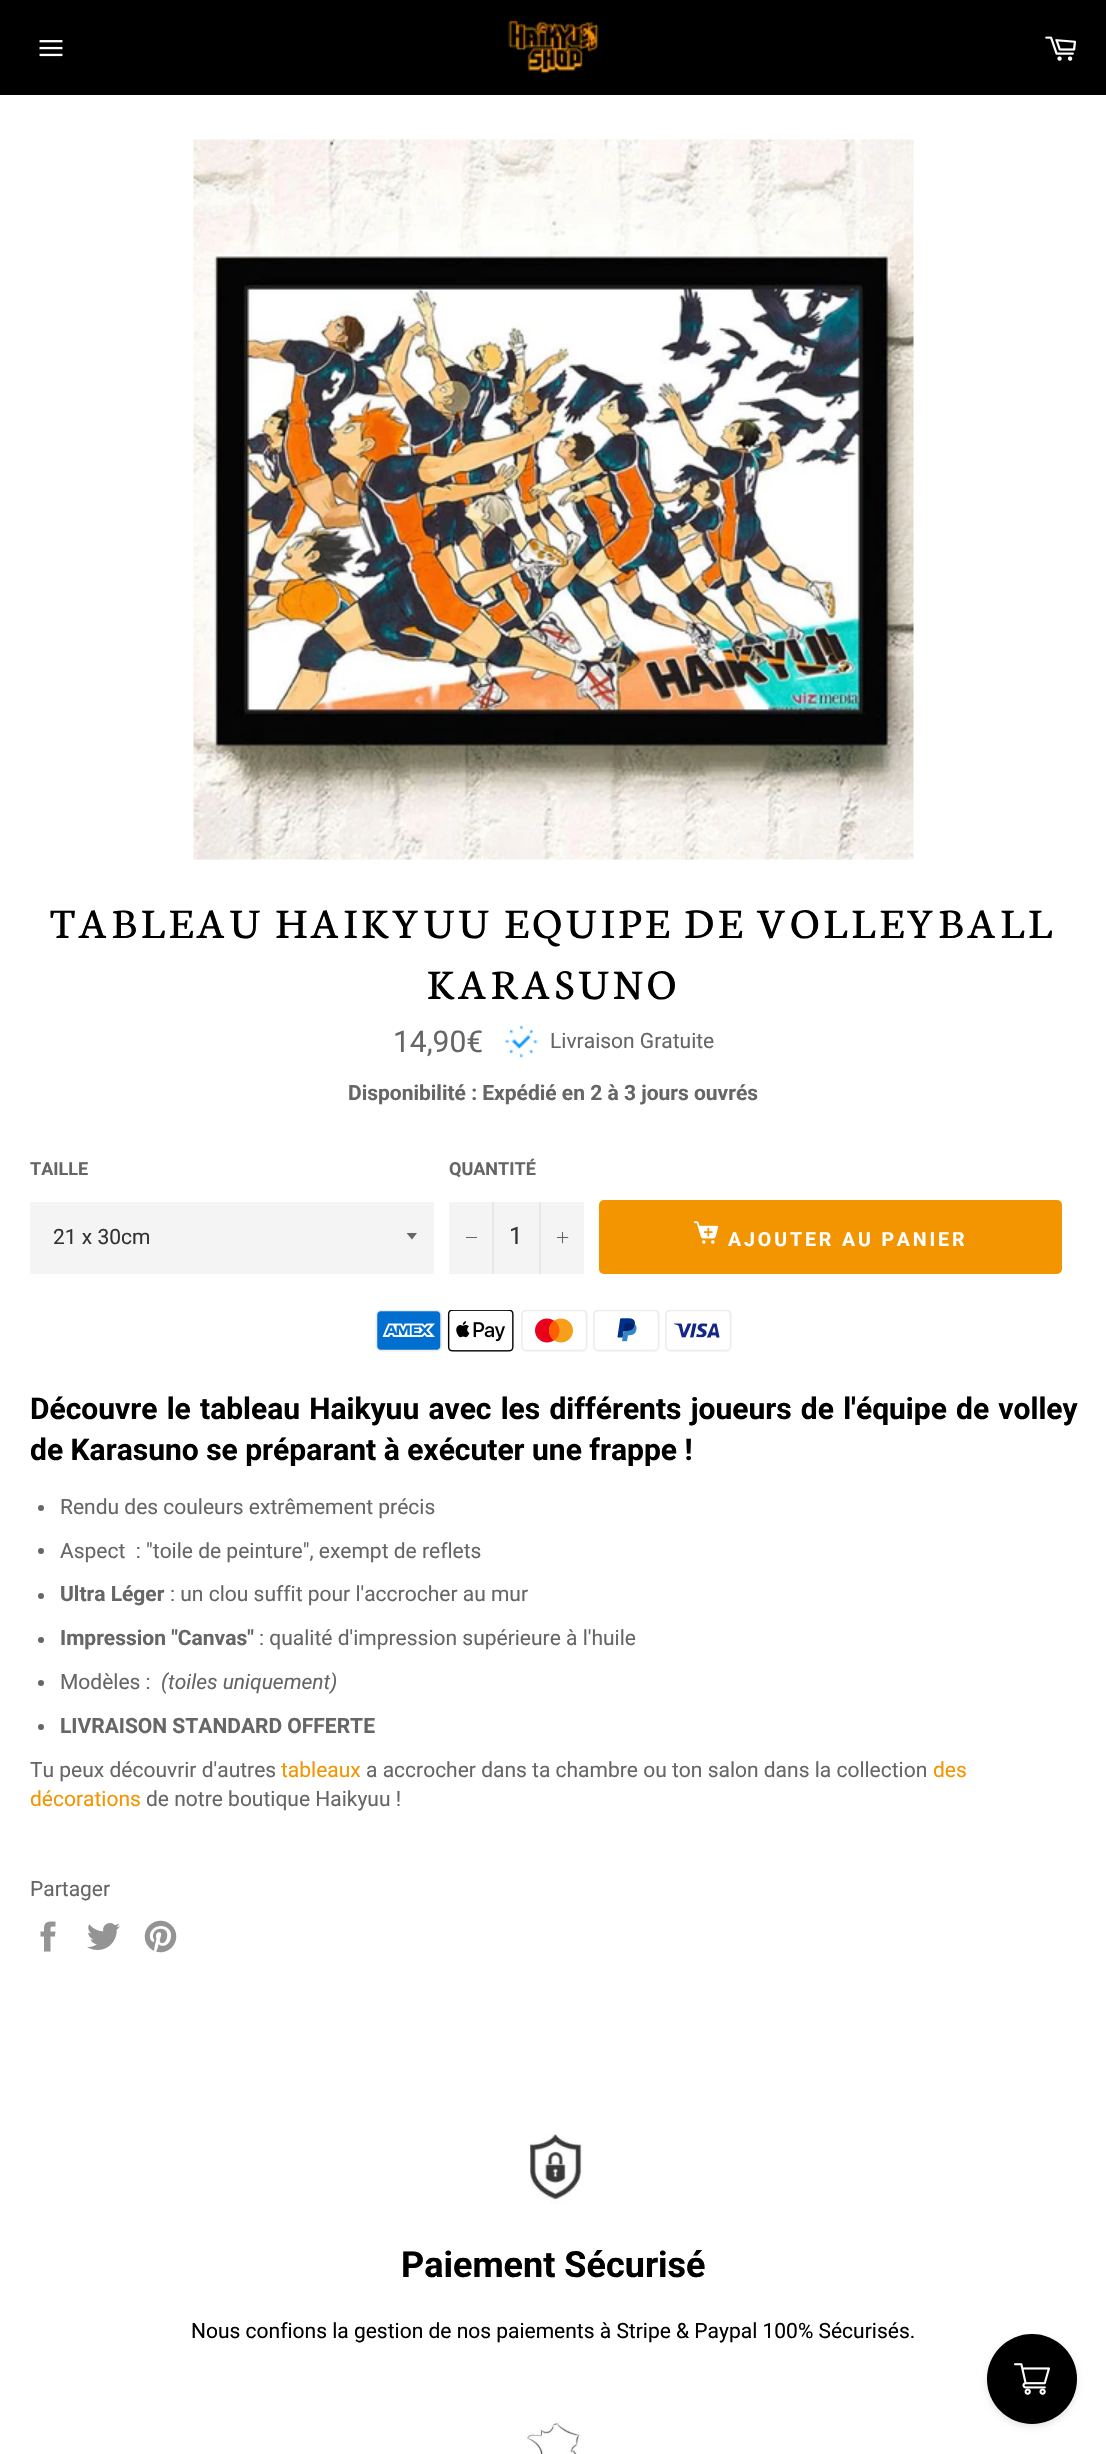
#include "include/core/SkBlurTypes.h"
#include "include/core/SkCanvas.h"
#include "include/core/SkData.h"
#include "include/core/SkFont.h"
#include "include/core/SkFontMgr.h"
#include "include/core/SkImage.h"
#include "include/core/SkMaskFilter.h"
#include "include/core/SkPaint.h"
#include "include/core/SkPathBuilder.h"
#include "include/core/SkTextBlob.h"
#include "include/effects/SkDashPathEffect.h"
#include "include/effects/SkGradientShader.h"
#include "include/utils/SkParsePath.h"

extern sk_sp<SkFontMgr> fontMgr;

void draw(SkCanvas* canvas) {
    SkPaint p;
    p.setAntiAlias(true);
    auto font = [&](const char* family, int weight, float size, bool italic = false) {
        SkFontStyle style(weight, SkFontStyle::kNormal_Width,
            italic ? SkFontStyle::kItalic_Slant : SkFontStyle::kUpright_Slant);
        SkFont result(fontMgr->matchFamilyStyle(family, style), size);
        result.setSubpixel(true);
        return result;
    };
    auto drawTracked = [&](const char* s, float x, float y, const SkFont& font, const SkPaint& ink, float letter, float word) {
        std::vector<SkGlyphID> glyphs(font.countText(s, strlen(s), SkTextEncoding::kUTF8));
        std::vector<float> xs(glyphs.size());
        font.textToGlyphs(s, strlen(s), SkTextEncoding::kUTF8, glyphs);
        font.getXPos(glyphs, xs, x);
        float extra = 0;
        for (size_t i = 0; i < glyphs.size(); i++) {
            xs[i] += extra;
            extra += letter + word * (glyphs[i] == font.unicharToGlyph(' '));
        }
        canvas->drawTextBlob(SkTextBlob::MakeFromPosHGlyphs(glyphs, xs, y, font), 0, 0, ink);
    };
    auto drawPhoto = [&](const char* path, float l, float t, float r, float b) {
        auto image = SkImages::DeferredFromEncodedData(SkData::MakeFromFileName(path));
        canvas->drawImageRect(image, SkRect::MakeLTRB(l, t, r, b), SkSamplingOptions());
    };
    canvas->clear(0xFFFFFFFF);
    p.setColor(0xFF000000);
    canvas->drawRect(SkRect::MakeLTRB(0, 0, 1106, 95), p);
    drawPhoto("media/1.png", 39, 40, 63, 57);
    drawPhoto("media/2.png", 508, 20, 599, 74);
    drawPhoto("media/3.png", 1045, 36, 1076, 61);
    drawPhoto("media/4.png", 193, 139, 914, 860);
    auto font1 = font("Neuton", 400, 45);
    drawTracked("TABLEAU HAIKYUU EQUIPE DE VOLLEYBALL", 50, 938, font1, p, 4.5f, 0);
    drawTracked("KARASUNO", 427, 999, font1, p, 4.5f, 0);
    auto font2 = font("Roboto", 400, 30);
    p.setColor(0xFF666666);
    canvas->drawString("14,90€", 393, 1052, font2, p);
    drawPhoto("media/5.png", 504, 1025, 538, 1059);
    auto font3 = font("Roboto", 400, 21);
    canvas->drawString("Livraison Gratuite", 550, 1048, font3, p);
    auto font4 = font("Roboto", 700, 21);
    canvas->drawString("Disponibilité : Expédié en 2 à 3 jours ouvrés", 348, 1100, font4, p);
    auto font5 = font("Roboto", 700, 18);
    canvas->drawString("TAILLE", 30, 1175, font5, p);
    p.setColor(0xFFF4F4F4);
    canvas->drawRect(SkRect::MakeLTRB(30, 1202, 434, 1274), p);
    p.setColor(0xFF666666);
    canvas->drawPath(SkPathBuilder().moveTo(406.5f, 1233).lineTo(412, 1239.5f).lineTo(417, 1233).close().detach(), p);
    p.setColor(0xFF333333);
    canvas->drawString("21 x 30cm", 53, 1244, font3, p);
    p.setColor(0xFF666666);
    canvas->drawString("QUANTITÉ", 449, 1175, font5, p);
    {
        const struct { float l, t, r, b; SkColor color; } items[] = {
            {449, 1202, 584, 1274, 0xFFF4F4F4},
            {492, 1202, 494, 1274, 0xFFE7E7E7},
            {466, 1237, 477, 1238, 0xFF666666},
        };
        for (auto [l, t, r, b, color] : items) {
            p.setColor(color);
            canvas->drawRect(SkRect::MakeLTRB(l, t, r, b), p);
        }
    }
    auto font6 = font("Roboto", 400, 24);
    p.setColor(0xFF333333);
    canvas->drawString("1", 509, 1244, font6, p);
    p.setColor(0xFFE7E7E7);
    canvas->drawRect(SkRect::MakeLTRB(539, 1202, 541, 1274), p);
    drawPhoto("media/6.png", 557, 1232, 569, 1244);
    p.setColor(0xFFF39401);
    canvas->drawRoundRect(SkRect::MakeLTRB(599, 1200, 1062, 1274), 5, 5, p);
    drawPhoto("media/7.png", 693, 1221, 719, 1244);
    auto font7 = font("Roboto", 700, 19.5f);
    p.setColor(0xFFFFFFFF);
    drawTracked("AJOUTER AU PANIER", 728, 1246, font7, p, 2.9f, 0);
    drawPhoto("media/8.png", 375, 1310, 442, 1352);
    drawPhoto("media/9.png", 447, 1310, 514, 1352);
    drawPhoto("media/10.png", 521, 1310, 588, 1352);
    drawPhoto("media/11.png", 593, 1310, 660, 1352);
    drawPhoto("media/12.png", 665, 1310, 732, 1352);
    auto font8 = font("Roboto", 700, 30);
    p.setColor(0xFF000000);
    drawTracked("Découvre le tableau Haikyuu avec les différents joueurs de l'équipe de volley", 30, 1419, font8, p, 0, 1.75f);
    canvas->drawString("de Karasuno se préparant à exécuter une frappe !", 30, 1460, font8, p);
    p.setColor(0xFF666666);
    canvas->drawCircle(41, 1508, 3, p);
    canvas->drawString("Rendu des couleurs extrêmement précis", 60, 1514, font3, p);
    canvas->drawCircle(41, 1551, 3, p);
    canvas->drawString("Aspect  : \"toile de peinture\", exempt de reflets", 60, 1558, font3, p);
    canvas->drawCircle(41, 1596, 3, p);
    canvas->drawString("Ultra Léger", 60, 1601, font4, p);
    canvas->drawString(": un clou suffit pour l'accrocher au mur", 170, 1601, font3, p);
    canvas->drawCircle(41, 1640, 3, p);
    canvas->drawString("Impression \"Canvas\"", 60, 1645, font4, p);
    canvas->drawString(": qualité d'impression supérieure à l'huile", 259, 1645, font3, p);
    canvas->drawCircle(41, 1683, 3, p);
    canvas->drawString("Modèles :", 60, 1689, font3, p);
    auto font9 = font("Roboto", 400, 21, true);
    canvas->drawString("(toiles uniquement)", 161, 1689, font9, p);
    canvas->drawCircle(41, 1727, 3, p);
    canvas->drawString("LIVRAISON STANDARD OFFERTE", 60, 1733, font4, p);
    canvas->drawString("Tu peux découvrir d'autres", 30, 1777, font3, p);
    p.setColor(0xFFF39401);
    canvas->drawString("tableaux", 281, 1777, font3, p);
    p.setColor(0xFF666666);
    canvas->drawString("a accrocher dans ta chambre ou ton salon dans la collection", 366, 1777, font3, p);
    p.setColor(0xFFF39401);
    canvas->drawString("des", 933, 1777, font3, p);
    canvas->drawString("décorations", 30, 1806, font3, p);
    p.setColor(0xFF666666);
    canvas->drawString("de notre boutique Haikyuu !", 146, 1806, font3, p);
    canvas->drawString("Partager", 30, 1896, font3, p);
    drawPhoto("media/13.png", 40, 1921, 56, 1952);
    drawPhoto("media/14.png", 87, 1923, 120, 1950);
    drawPhoto("media/15.png", 144, 1920, 177, 1953);
    drawPhoto("media/16.png", 530, 2134, 584, 2204);
    auto font10 = font("Roboto", 700, 36);
    p.setColor(0xFF000000);
    canvas->drawString("Paiement Sécurisé", 401, 2277, font10, p);
    canvas->drawString("Nous confions la gestion de nos paiements à Stripe & Paypal 100% Sécurisés.", 191, 2338, font3, p);
    drawPhoto("media/17.png", 527, 2421, 582, 2454);
    p.setColor(0x1A000000);
    p.setMaskFilter(SkMaskFilter::MakeBlur(kNormal_SkBlurStyle, 3));
    canvas->drawRoundRect(SkRect::MakeLTRB(987, 2337, 1077, 2427), 45, 45, p);
    p.setMaskFilter(nullptr);
    p.setColor(0xFF000000);
    canvas->drawCircle(1032, 2379, 45, p);
    p.setStyle(SkPaint::kStroke_Style);
    p.setStrokeWidth(2);
    p.setColor(0x1A000000);
    canvas->drawCircle(1032, 2379, 44, p);
    drawPhoto("media/18.png", 1014, 2363, 1050, 2395);
}
